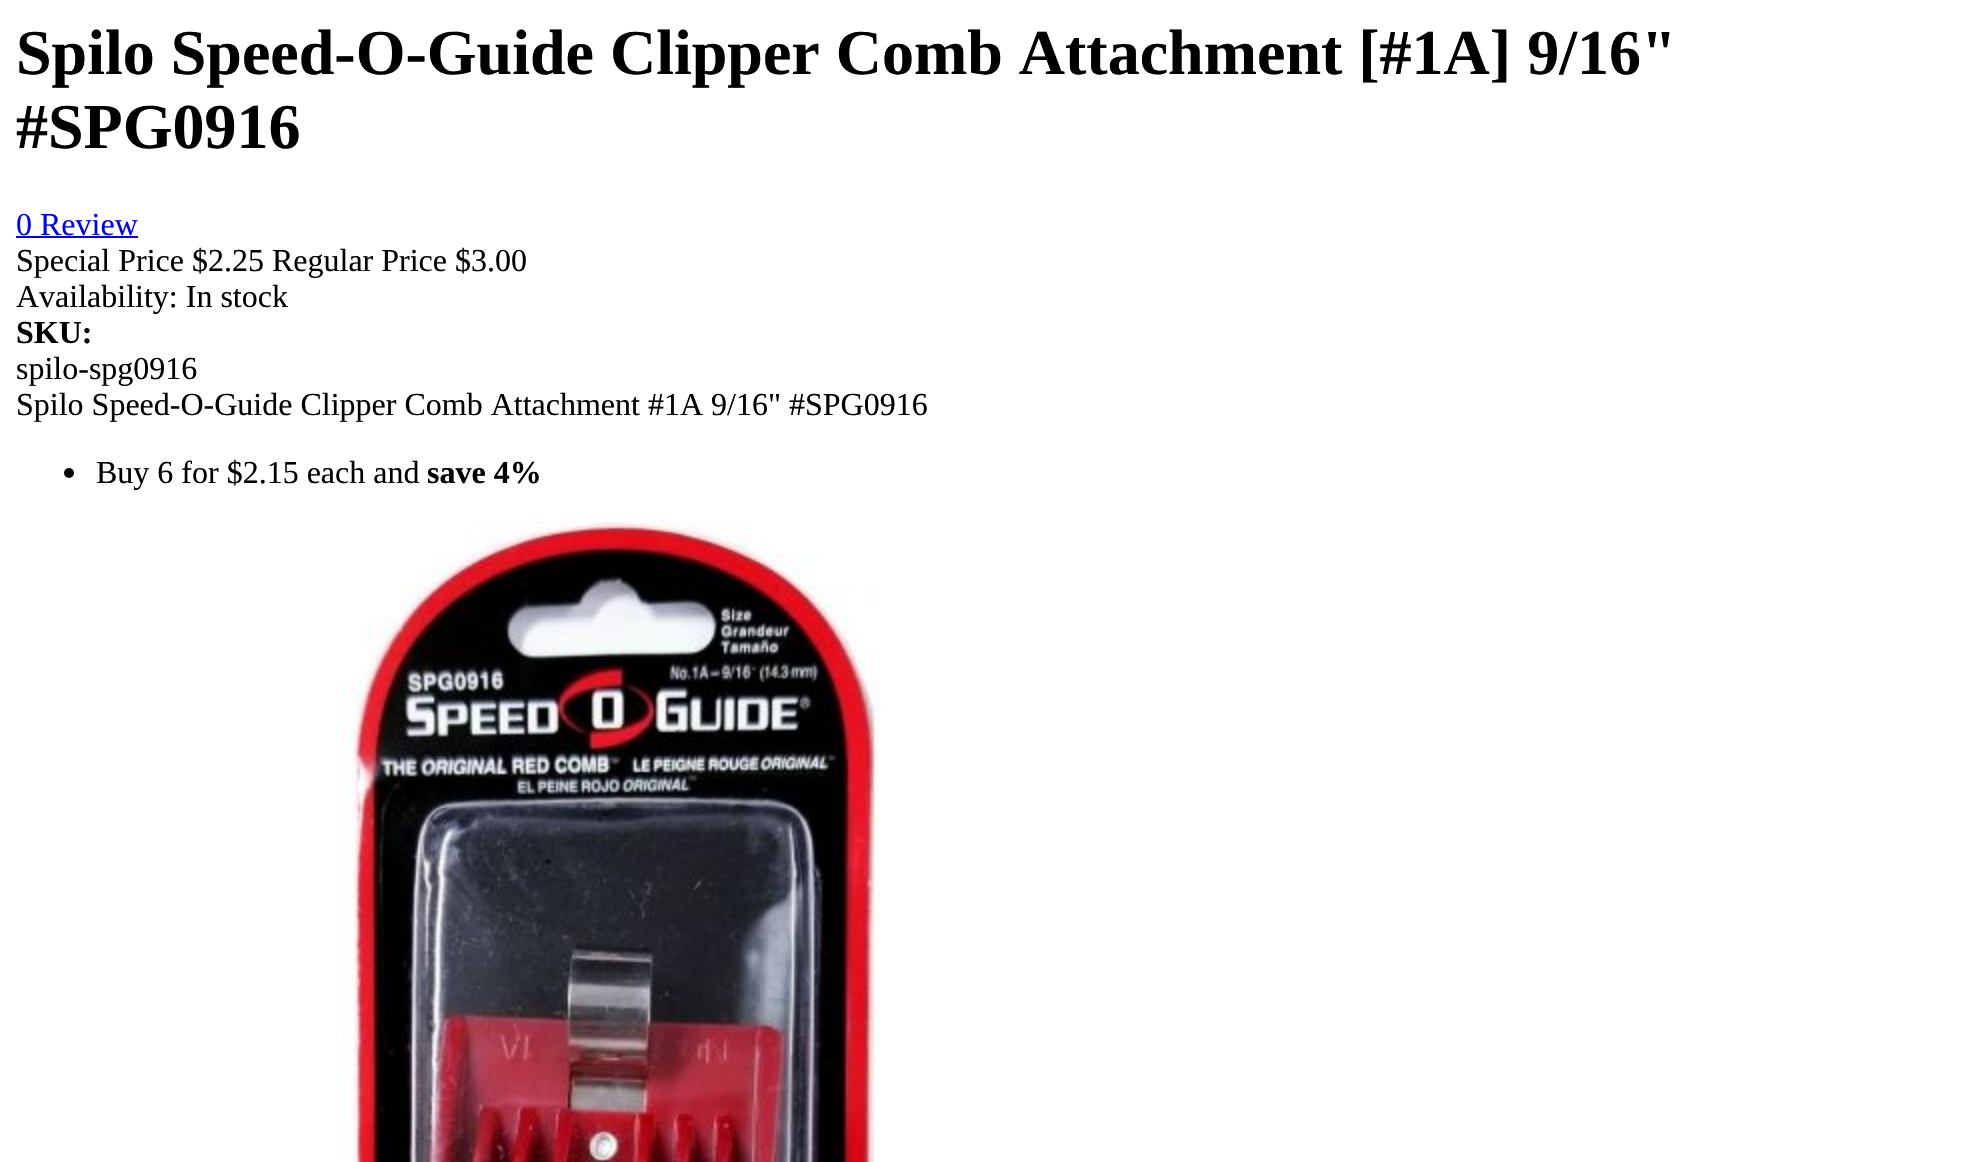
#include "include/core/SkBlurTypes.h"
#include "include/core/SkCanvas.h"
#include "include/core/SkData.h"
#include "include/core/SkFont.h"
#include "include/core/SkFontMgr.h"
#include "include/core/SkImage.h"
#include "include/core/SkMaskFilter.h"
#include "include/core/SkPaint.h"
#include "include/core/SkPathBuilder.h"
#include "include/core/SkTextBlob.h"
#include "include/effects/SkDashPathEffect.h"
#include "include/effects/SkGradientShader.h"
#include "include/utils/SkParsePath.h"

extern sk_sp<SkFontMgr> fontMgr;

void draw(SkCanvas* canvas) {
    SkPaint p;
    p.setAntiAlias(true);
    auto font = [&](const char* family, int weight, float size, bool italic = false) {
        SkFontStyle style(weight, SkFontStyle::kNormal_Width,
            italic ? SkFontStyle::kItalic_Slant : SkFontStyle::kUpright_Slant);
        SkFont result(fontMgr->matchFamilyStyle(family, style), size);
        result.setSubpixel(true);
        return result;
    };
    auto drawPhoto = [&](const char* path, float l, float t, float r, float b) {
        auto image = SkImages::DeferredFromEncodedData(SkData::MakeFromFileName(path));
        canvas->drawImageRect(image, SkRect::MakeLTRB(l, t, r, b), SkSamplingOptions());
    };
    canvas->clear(0xFFFFFFFF);
    auto font1 = font("Liberation Serif", 700, 64);
    p.setColor(0xFF000000);
    canvas->drawString("Spilo Speed-O-Guide Clipper Comb Attachment [#1A] 9/16\"", 16, 74, font1, p);
    canvas->drawString("#SPG0916", 16, 148, font1, p);
    auto font2 = font("Liberation Serif", 400, 32);
    p.setColor(0xFF0000EE);
    canvas->drawString("0 Review", 16, 235, font2, p);
    canvas->drawRect(SkRect::MakeLTRB(16, 236, 138, 238), p);
    p.setColor(0xFF000000);
    canvas->drawString("Special Price $2.25 Regular Price $3.00", 16, 271, font2, p);
    canvas->drawString("Availability: In stock", 16, 307, font2, p);
    auto font3 = font("Liberation Serif", 700, 32);
    canvas->drawString("SKU:", 16, 343, font3, p);
    canvas->drawString("spilo-spg0916", 16, 379, font2, p);
    canvas->drawString("Spilo Speed-O-Guide Clipper Comb Attachment #1A 9/16\" #SPG0916", 16, 415, font2, p);
    canvas->drawCircle(69, 473, 5, p);
    canvas->drawString("Buy 6 for $2.15 each and", 96, 483, font2, p);
    canvas->drawString("save 4%", 427, 483, font3, p);
    drawPhoto("media/1.png", 336, 522, 881, 1162);
}
